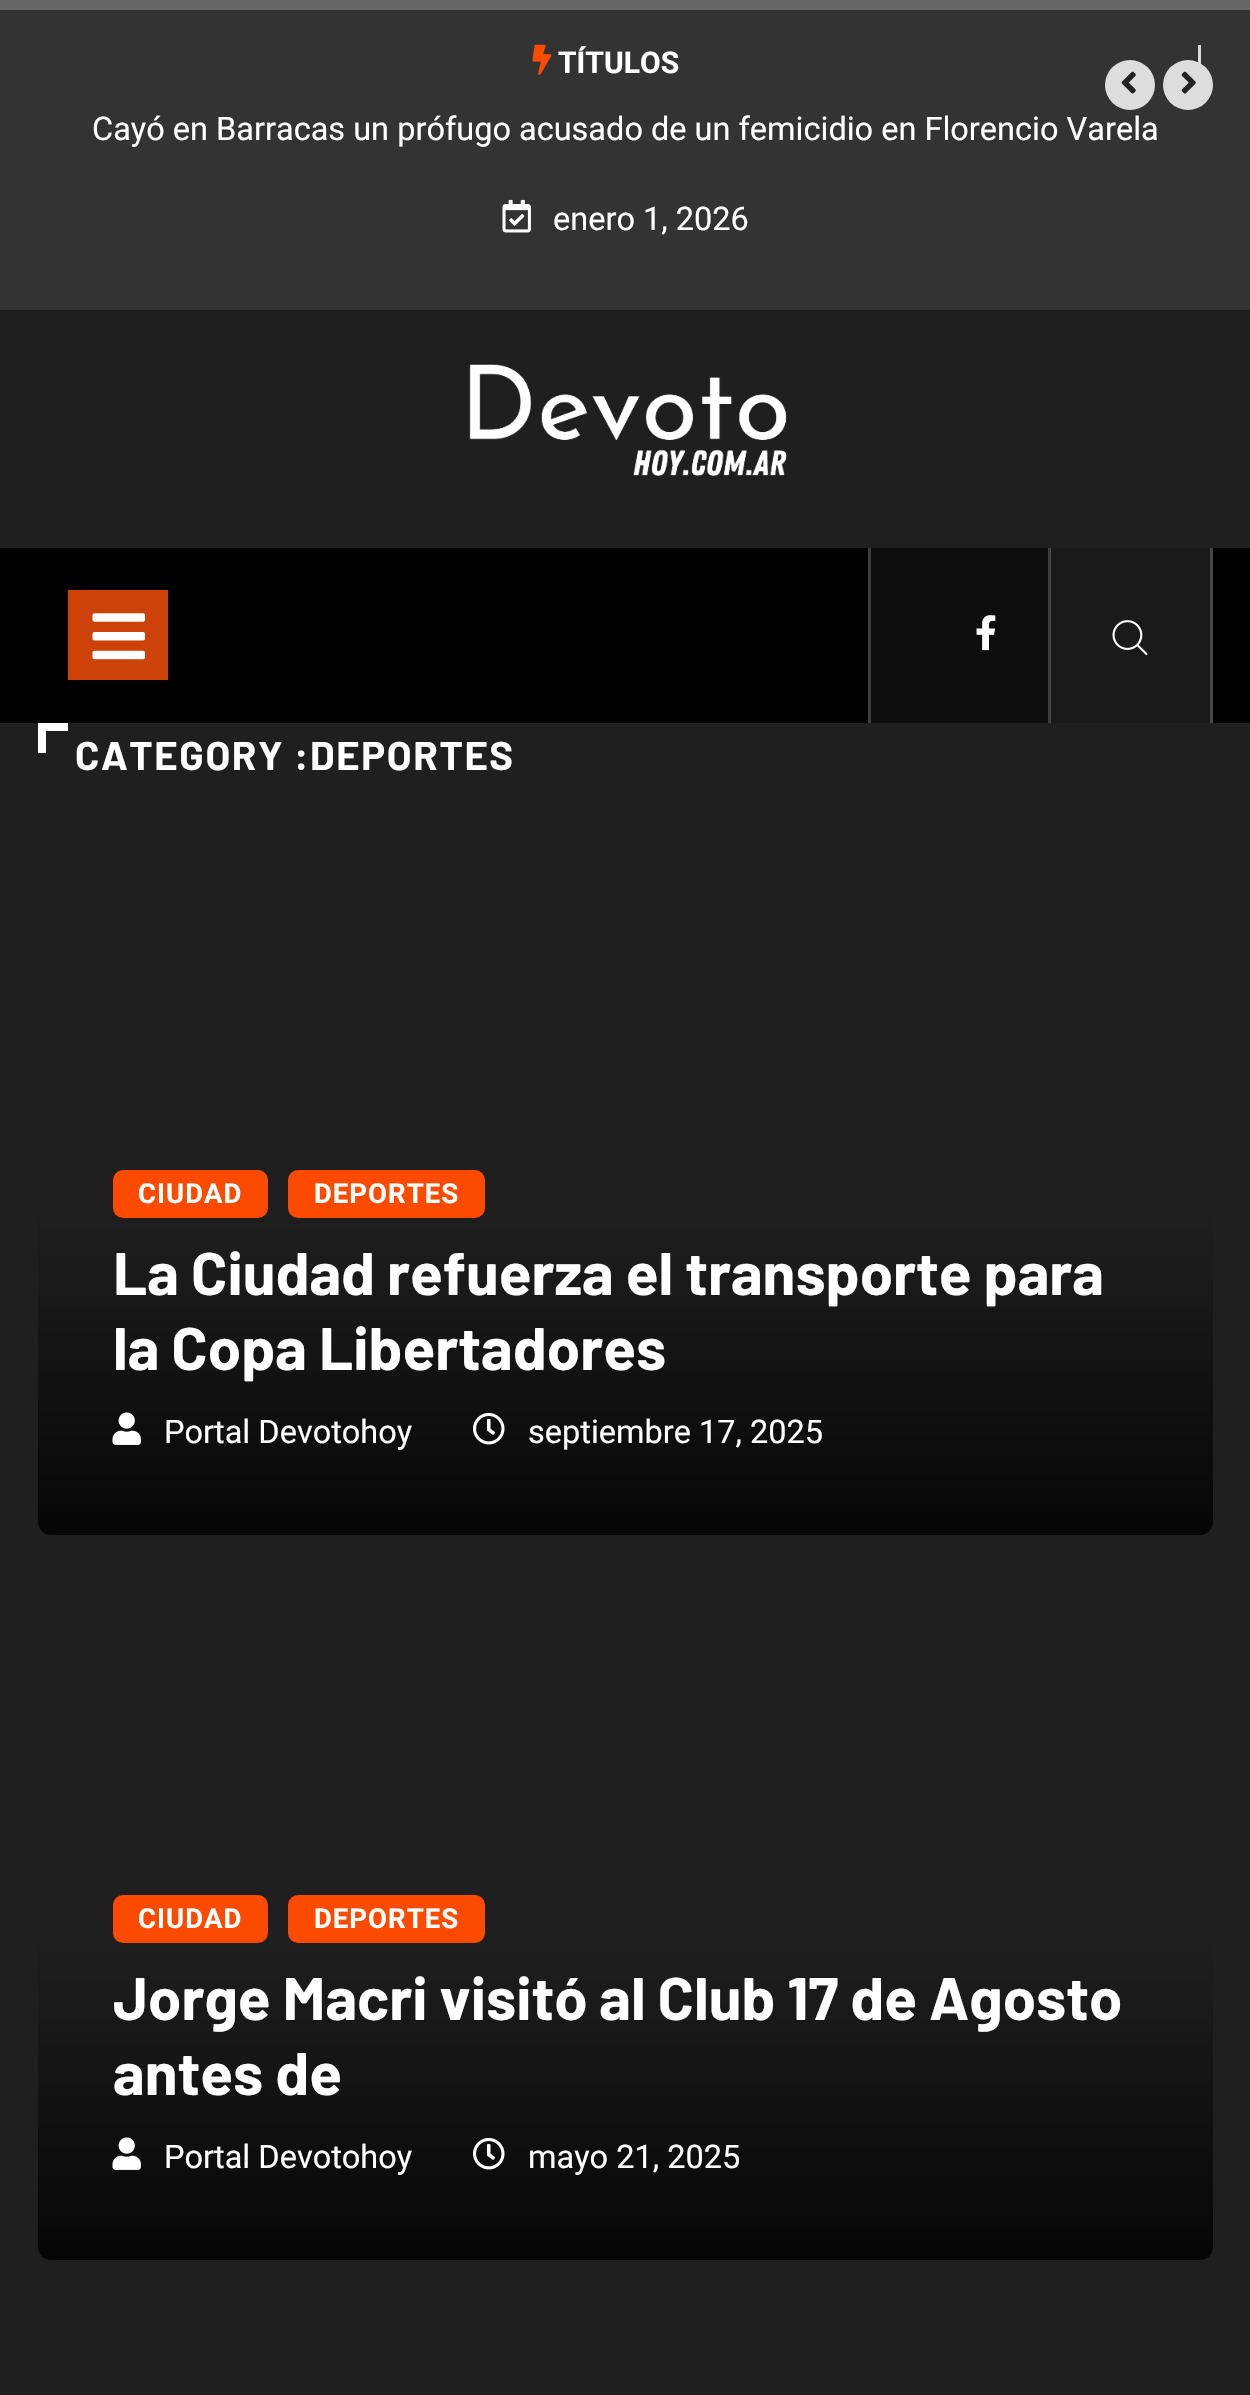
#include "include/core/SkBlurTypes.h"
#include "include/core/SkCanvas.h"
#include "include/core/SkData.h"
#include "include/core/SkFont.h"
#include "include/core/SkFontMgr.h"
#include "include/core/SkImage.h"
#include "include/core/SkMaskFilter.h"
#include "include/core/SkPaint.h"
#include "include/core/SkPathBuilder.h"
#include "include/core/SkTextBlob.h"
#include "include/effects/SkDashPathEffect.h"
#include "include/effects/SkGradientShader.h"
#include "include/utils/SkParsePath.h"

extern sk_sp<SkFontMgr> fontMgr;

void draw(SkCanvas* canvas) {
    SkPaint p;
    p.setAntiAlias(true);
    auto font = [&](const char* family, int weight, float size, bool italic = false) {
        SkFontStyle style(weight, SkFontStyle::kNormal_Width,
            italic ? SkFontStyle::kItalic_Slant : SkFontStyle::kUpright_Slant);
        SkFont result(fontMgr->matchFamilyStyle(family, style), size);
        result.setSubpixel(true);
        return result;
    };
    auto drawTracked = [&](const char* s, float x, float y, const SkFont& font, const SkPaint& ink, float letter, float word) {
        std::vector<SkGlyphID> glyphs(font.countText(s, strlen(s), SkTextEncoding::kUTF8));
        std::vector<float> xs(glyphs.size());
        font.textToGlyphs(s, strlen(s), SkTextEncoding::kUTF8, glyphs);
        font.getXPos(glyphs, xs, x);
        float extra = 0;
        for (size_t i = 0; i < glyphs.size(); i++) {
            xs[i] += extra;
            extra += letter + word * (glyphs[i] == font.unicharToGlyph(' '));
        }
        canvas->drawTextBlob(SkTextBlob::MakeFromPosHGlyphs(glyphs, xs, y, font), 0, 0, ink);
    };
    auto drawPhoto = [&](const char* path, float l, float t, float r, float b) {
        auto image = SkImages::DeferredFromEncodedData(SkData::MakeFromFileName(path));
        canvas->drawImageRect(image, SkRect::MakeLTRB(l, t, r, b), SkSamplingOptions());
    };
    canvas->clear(0xFF1F1F1F);
    {
        const struct { float l, t, r, b; SkColor color; } items[] = {
            {0, 0, 1250, 10, 0xFF676666},
            {0, 10, 1250, 310, 0xFF333333},
            {1198, 45, 1201, 64, 0xFFDEDBDB},
        };
        for (auto [l, t, r, b, color] : items) {
            p.setColor(color);
            canvas->drawRect(SkRect::MakeLTRB(l, t, r, b), p);
        }
    }
    drawPhoto("media/1.png", 532, 44, 552, 75);
    auto font1 = font("Roboto", 700, 30);
    p.setColor(0xFFFFFFFF);
    canvas->drawString("TÍTULOS", 558, 73, font1, p);
    p.setColor(0xFFDDDDDD);
    canvas->drawCircle(1130, 85, 25, p);
    drawPhoto("media/2.png", 1121, 71, 1136, 94);
    canvas->drawCircle(1188, 85, 25, p);
    drawPhoto("media/3.png", 1181, 71, 1196, 94);
    auto font2 = font("Roboto", 400, 32.5f);
    p.setColor(0xFFFFFFFF);
    canvas->drawString("Cayó en Barracas un prófugo acusado de un femicidio en Florencio Varela", 92, 140, font2, p);
    drawPhoto("media/4.png", 502, 199, 531, 233);
    canvas->drawString("enero 1, 2026", 553, 230, font2, p);
    drawPhoto("media/5.png", 469, 364, 787, 476);
    {
        const struct { float l, t, r, b; SkColor color; } items[] = {
            {0, 548, 1250, 723, 0xFF000000},
            {1051, 548, 1210, 723, 0xFF1A1A1A},
            {1050, 548, 1051, 723, 0xFF474747},
            {68, 590, 168, 680, 0xFFCC4209},
        };
        for (auto [l, t, r, b, color] : items) {
            p.setColor(color);
            canvas->drawRect(SkRect::MakeLTRB(l, t, r, b), p);
        }
    }
    drawPhoto("media/6.png", 92, 613, 145, 660);
    {
        const struct { float l, t, r, b; SkColor color; } items[] = {
            {871, 548, 1048, 723, 0xFF0D0D0D},
            {1048, 548, 1050, 723, 0xFF3D3D3D},
            {868, 548, 871, 723, 0xFF3D3D3D},
        };
        for (auto [l, t, r, b, color] : items) {
            p.setColor(color);
            canvas->drawRect(SkRect::MakeLTRB(l, t, r, b), p);
        }
    }
    drawPhoto("media/7.png", 976, 615, 996, 651);
    p.setColor(0xFF474747);
    canvas->drawRect(SkRect::MakeLTRB(1210, 548, 1213, 723), p);
    drawPhoto("media/8.png", 1112, 620, 1148, 656);
    p.setColor(0xFFFFFFFF);
    canvas->drawRect(SkRect::MakeLTRB(38, 723, 46, 753), p);
    canvas->drawRect(SkRect::MakeLTRB(38, 723, 68, 731), p);
    auto font3 = font("Barlow", 700, 40);
    drawTracked("CATEGORY :DEPORTES", 75, 770, font3, p, 1.6f, 0);
    {
        const SkColor colors[] = {0xFF1F1F1F, 0xFF060606};
        const float stops[] = {0.5f, 1};
        const SkPoint ends[] = {{625, 885}, {625, 1535}};
        p.setShader(SkGradientShader::MakeLinear(ends, colors, stops, 2, SkTileMode::kClamp));
        p.setAlpha(255);
    }
    canvas->drawRoundRect(SkRect::MakeLTRB(38, 885, 1213, 1535), 13, 13, p);
    p.setShader(nullptr);
    p.setColor(0xFFFC4A00);
    canvas->drawRoundRect(SkRect::MakeLTRB(113, 1170, 268, 1218), 10, 10, p);
    auto font4 = font("Roboto", 700, 27.5f);
    p.setColor(0xFFFFFFFF);
    drawTracked("CIUDAD", 138, 1203, font4, p, 1, 0);
    p.setColor(0xFFFC4A00);
    canvas->drawRoundRect(SkRect::MakeLTRB(288, 1170, 485, 1218), 10, 10, p);
    p.setColor(0xFFFFFFFF);
    drawTracked("DEPORTES", 314, 1203, font4, p, 1, 0);
    auto font5 = font("Barlow", 700, 60);
    canvas->drawString("La Ciudad refuerza el transporte para", 113, 1295, font5, p);
    canvas->drawString("la Copa Libertadores", 113, 1370, font5, p);
    drawPhoto("media/9.png", 112, 1412, 141, 1445);
    canvas->drawString("Portal Devotohoy", 164, 1443, font2, p);
    drawPhoto("media/10.png", 473, 1412, 505, 1445);
    canvas->drawString("septiembre 17, 2025", 528, 1443, font2, p);
    {
        const SkColor colors[] = {0xFF1F1F1F, 0xFF060606};
        const float stops[] = {0.5f, 1};
        const SkPoint ends[] = {{625, 1610}, {625, 2260}};
        p.setShader(SkGradientShader::MakeLinear(ends, colors, stops, 2, SkTileMode::kClamp));
        p.setAlpha(255);
    }
    canvas->drawRoundRect(SkRect::MakeLTRB(38, 1610, 1213, 2260), 13, 13, p);
    p.setShader(nullptr);
    p.setColor(0xFFFC4A00);
    canvas->drawRoundRect(SkRect::MakeLTRB(113, 1895, 268, 1943), 10, 10, p);
    p.setColor(0xFFFFFFFF);
    drawTracked("CIUDAD", 138, 1928, font4, p, 1, 0);
    p.setColor(0xFFFC4A00);
    canvas->drawRoundRect(SkRect::MakeLTRB(288, 1895, 485, 1943), 10, 10, p);
    p.setColor(0xFFFFFFFF);
    drawTracked("DEPORTES", 314, 1928, font4, p, 1, 0);
    canvas->drawString("Jorge Macri visitó al Club 17 de Agosto", 113, 2020, font5, p);
    canvas->drawString("antes de", 113, 2095, font5, p);
    drawPhoto("media/9.png", 112, 2137, 141, 2170);
    canvas->drawString("Portal Devotohoy", 164, 2168, font2, p);
    drawPhoto("media/10.png", 473, 2137, 505, 2170);
    canvas->drawString("mayo 21, 2025", 528, 2168, font2, p);
}
